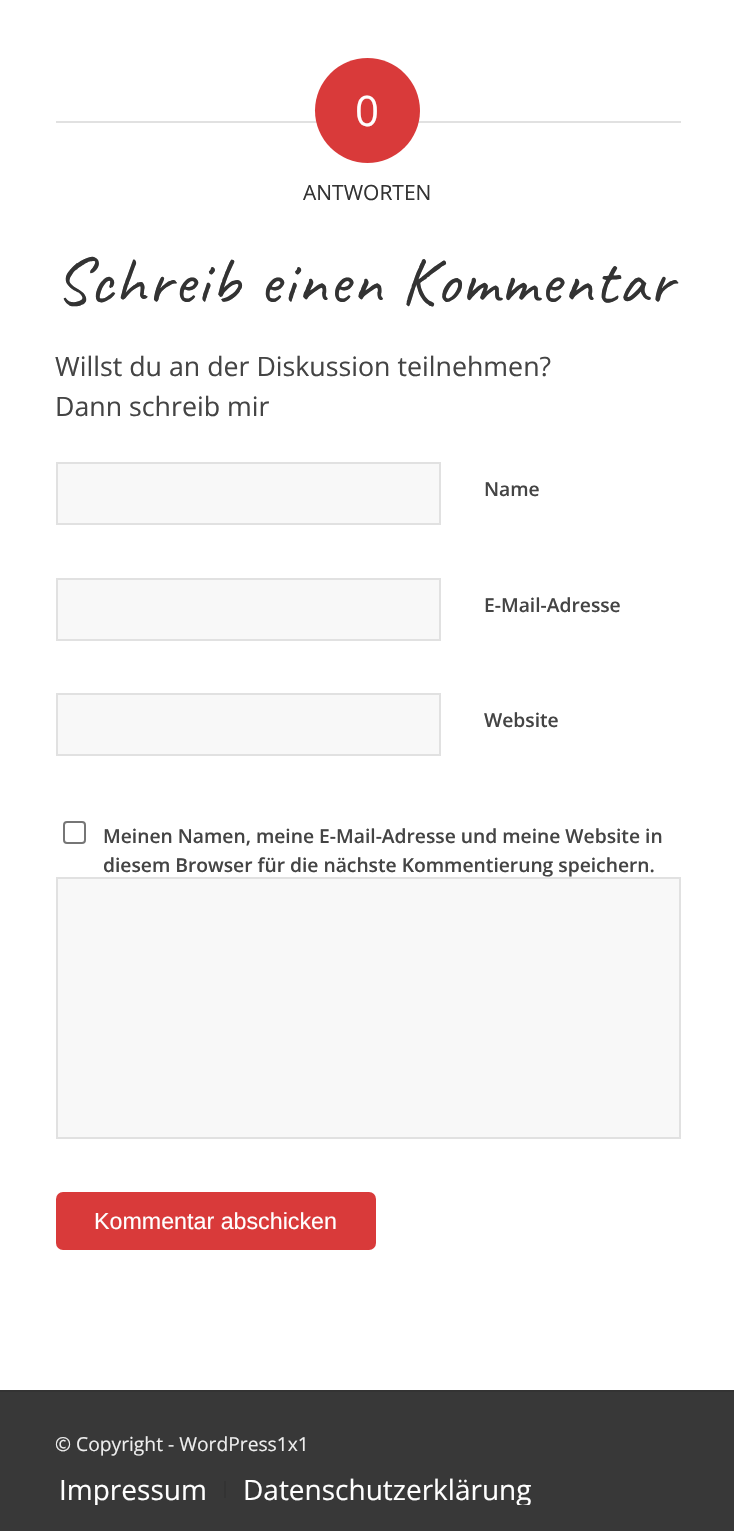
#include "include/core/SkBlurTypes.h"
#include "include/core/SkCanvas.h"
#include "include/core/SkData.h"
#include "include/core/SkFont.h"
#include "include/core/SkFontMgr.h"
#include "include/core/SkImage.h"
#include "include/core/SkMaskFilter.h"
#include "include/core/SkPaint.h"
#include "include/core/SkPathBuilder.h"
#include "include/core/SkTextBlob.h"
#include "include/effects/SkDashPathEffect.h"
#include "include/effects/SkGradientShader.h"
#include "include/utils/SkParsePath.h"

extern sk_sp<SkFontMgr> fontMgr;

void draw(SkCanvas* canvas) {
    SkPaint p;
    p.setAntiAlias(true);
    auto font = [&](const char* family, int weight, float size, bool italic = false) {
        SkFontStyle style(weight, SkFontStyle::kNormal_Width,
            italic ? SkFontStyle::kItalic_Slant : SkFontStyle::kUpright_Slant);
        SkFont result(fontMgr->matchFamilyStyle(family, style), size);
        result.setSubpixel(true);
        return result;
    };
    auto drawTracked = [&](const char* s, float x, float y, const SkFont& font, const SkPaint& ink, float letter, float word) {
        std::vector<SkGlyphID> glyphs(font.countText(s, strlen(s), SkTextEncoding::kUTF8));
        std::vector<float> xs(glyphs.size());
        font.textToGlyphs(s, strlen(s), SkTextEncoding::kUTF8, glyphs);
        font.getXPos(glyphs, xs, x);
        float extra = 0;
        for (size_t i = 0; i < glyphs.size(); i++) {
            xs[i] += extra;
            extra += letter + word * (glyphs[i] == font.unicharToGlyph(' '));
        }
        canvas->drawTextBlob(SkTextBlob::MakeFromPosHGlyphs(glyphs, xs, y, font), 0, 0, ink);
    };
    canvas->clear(0xFFFFFFFF);
    p.setColor(0xFFE1E1E1);
    canvas->drawRect(SkRect::MakeLTRB(56, 121, 317, 123), p);
    canvas->drawRect(SkRect::MakeLTRB(418, 121, 681, 123), p);
    p.setColor(0xFFD93A3A);
    canvas->drawCircle(367.5f, 110.5f, 52.5f, p);
    auto font1 = font("Open Sans", 400, 42);
    p.setColor(0xFFFFFFFF);
    canvas->drawString("0", 355, 126, font1, p);
    auto font2 = font("Open Sans", 400, 21);
    p.setColor(0xFF333333);
    canvas->drawString("ANTWORTEN", 303, 200, font2, p);
    auto font3 = font("Caveat", 400, 66.5f);
    drawTracked("Schreib einen Kommentar", 55, 303, font3, p, 1.75f, 0);
    auto font4 = font("Open Sans", 400, 26.75f);
    p.setColor(0xFF444444);
    canvas->drawString("Willst du an der Diskussion teilnehmen?", 55, 376, font4, p);
    canvas->drawString("Dann schreib mir", 55, 416, font4, p);
    p.setColor(0xFFF8F8F8);
    canvas->drawRect(SkRect::MakeLTRB(57, 463, 440, 524), p);
    p.setStyle(SkPaint::kStroke_Style);
    p.setStrokeWidth(2);
    p.setColor(0xFFE1E1E1);
    canvas->drawRect(SkRect::MakeLTRB(57, 463, 440, 524), p);
    auto font5 = font("Open Sans", 600, 19.25f);
    p.setStyle(SkPaint::kFill_Style);
    p.setColor(0xFF444444);
    canvas->drawString("Name", 484, 496, font5, p);
    p.setColor(0xFFF8F8F8);
    canvas->drawRect(SkRect::MakeLTRB(57, 579, 440, 640), p);
    p.setStyle(SkPaint::kStroke_Style);
    p.setColor(0xFFE1E1E1);
    canvas->drawRect(SkRect::MakeLTRB(57, 579, 440, 640), p);
    p.setStyle(SkPaint::kFill_Style);
    p.setColor(0xFF444444);
    canvas->drawString("E-Mail-Adresse", 484, 612, font5, p);
    p.setColor(0xFFF8F8F8);
    canvas->drawRect(SkRect::MakeLTRB(57, 694, 440, 755), p);
    p.setStyle(SkPaint::kStroke_Style);
    p.setColor(0xFFE1E1E1);
    canvas->drawRect(SkRect::MakeLTRB(57, 694, 440, 755), p);
    p.setStyle(SkPaint::kFill_Style);
    p.setColor(0xFF444444);
    canvas->drawString("Website", 484, 727, font5, p);
    p.setStyle(SkPaint::kStroke_Style);
    p.setColor(0xFF767676);
    canvas->drawRoundRect(SkRect::MakeLTRB(64, 822, 85, 843), 3, 3, p);
    p.setStyle(SkPaint::kFill_Style);
    p.setColor(0xFF444444);
    canvas->drawString("Meinen Namen, meine E-Mail-Adresse und meine Website in", 103, 843, font5, p);
    canvas->drawString("diesem Browser für die nächste Kommentierung speichern.", 103, 872, font5, p);
    p.setColor(0xFFF8F8F8);
    canvas->drawRect(SkRect::MakeLTRB(57, 878, 680, 1138), p);
    p.setStyle(SkPaint::kStroke_Style);
    p.setColor(0xFFE1E1E1);
    canvas->drawRect(SkRect::MakeLTRB(57, 878, 680, 1138), p);
    p.setStyle(SkPaint::kFill_Style);
    p.setColor(0xFFD93A3A);
    canvas->drawRoundRect(SkRect::MakeLTRB(56, 1192, 376, 1250), 7, 7, p);
    auto font6 = font("Liberation Sans", 400, 23.25f);
    p.setColor(0xFFFFFFFF);
    canvas->drawString("Kommentar abschicken", 94, 1229, font6, p);
    p.setColor(0xFF383838);
    canvas->drawRect(SkRect::MakeLTRB(0, 1392, 734, 1531), p);
    p.setColor(0xFF333333);
    canvas->drawRect(SkRect::MakeLTRB(0, 1390, 734, 1392), p);
    auto font7 = font("Open Sans", 400, 19.25f);
    p.setColor(0xFFEEEEEE);
    canvas->drawString("© Copyright - WordPress1x1", 55, 1451, font7, p);
    canvas->save();
    canvas->clipRect(SkRect::MakeLTRB(30, 1470, 655, 1505));
    auto font8 = font("Open Sans", 400, 28);
    p.setColor(0xFFFFFFFF);
    canvas->drawString("Impressum", 59, 1500, font8, p);
    canvas->restore();
    p.setColor(0xFF333333);
    canvas->drawRect(SkRect::MakeLTRB(224, 1481, 226, 1498), p);
    canvas->save();
    canvas->clipRect(SkRect::MakeLTRB(30, 1470, 655, 1505));
    p.setColor(0xFFFFFFFF);
    canvas->drawString("Datenschutzerklärung", 243, 1500, font8, p);
    canvas->restore();
}
